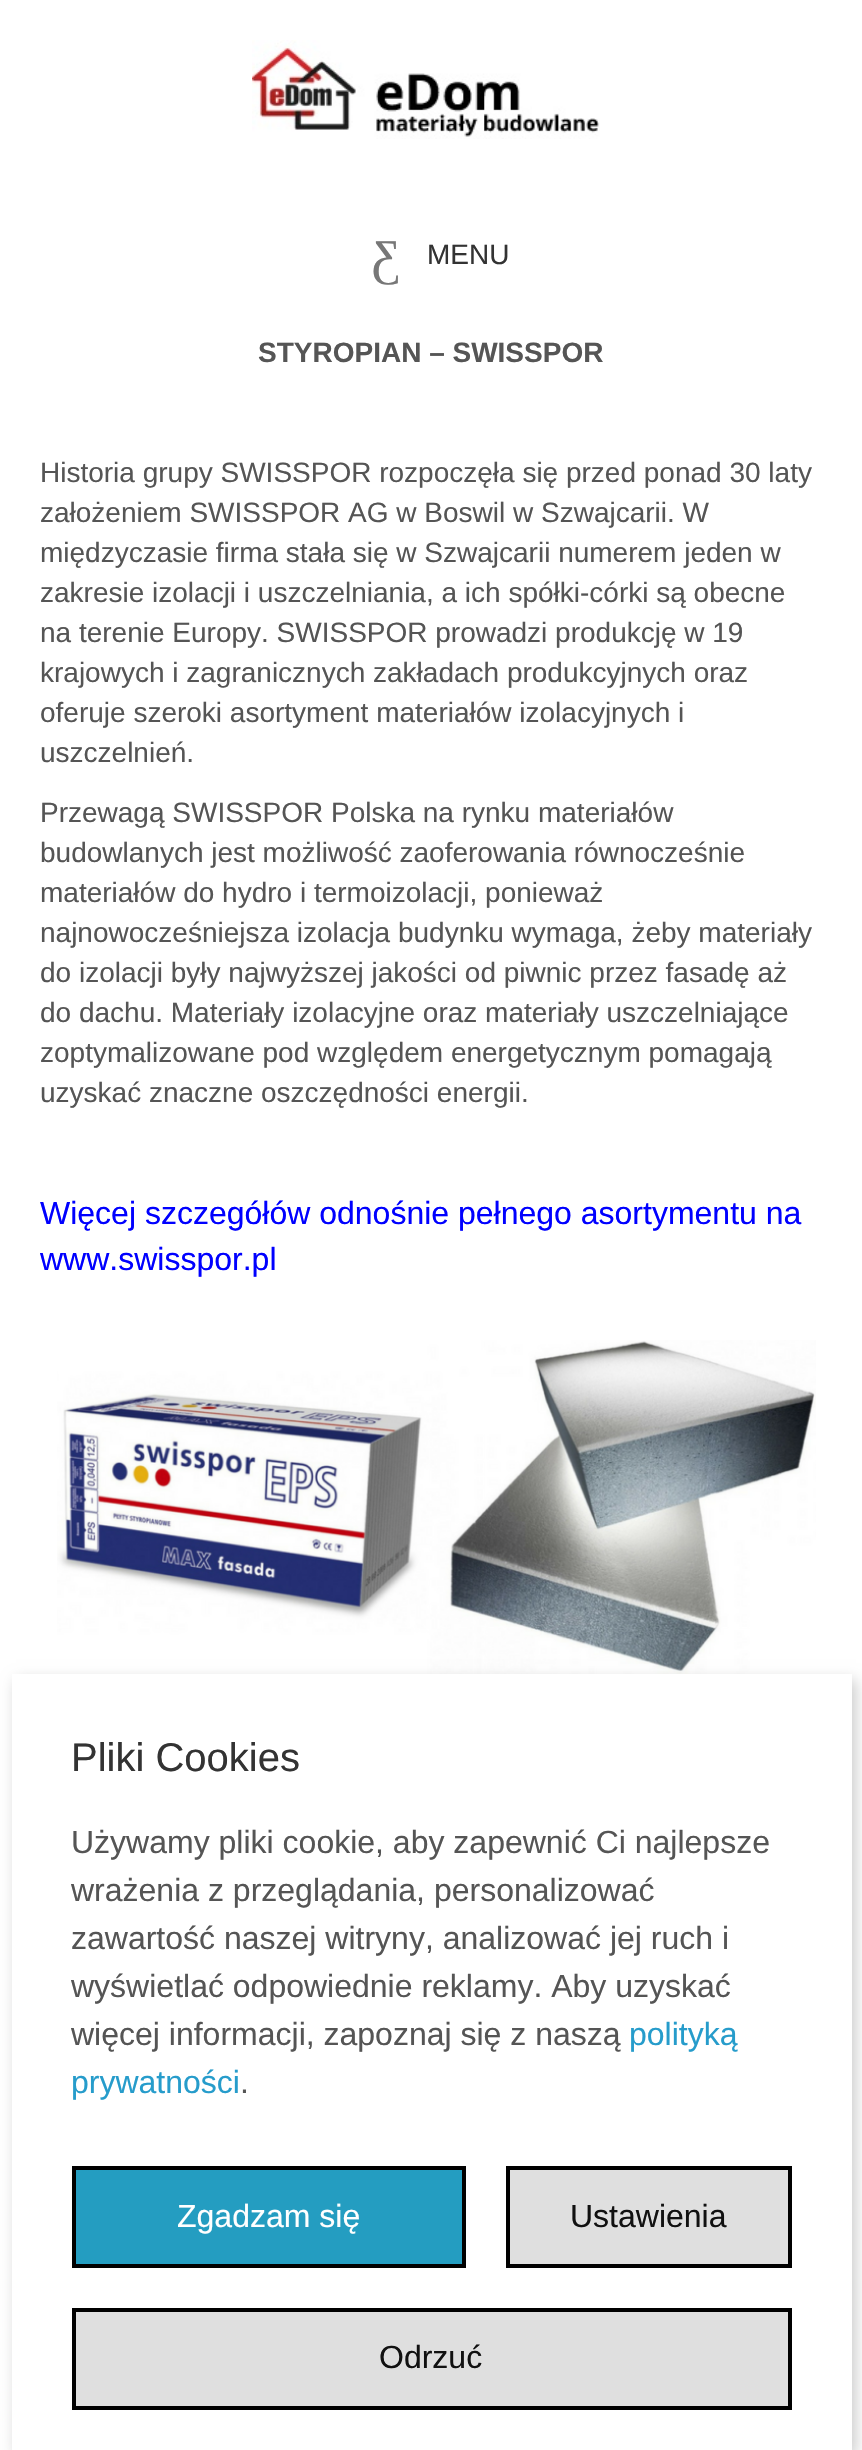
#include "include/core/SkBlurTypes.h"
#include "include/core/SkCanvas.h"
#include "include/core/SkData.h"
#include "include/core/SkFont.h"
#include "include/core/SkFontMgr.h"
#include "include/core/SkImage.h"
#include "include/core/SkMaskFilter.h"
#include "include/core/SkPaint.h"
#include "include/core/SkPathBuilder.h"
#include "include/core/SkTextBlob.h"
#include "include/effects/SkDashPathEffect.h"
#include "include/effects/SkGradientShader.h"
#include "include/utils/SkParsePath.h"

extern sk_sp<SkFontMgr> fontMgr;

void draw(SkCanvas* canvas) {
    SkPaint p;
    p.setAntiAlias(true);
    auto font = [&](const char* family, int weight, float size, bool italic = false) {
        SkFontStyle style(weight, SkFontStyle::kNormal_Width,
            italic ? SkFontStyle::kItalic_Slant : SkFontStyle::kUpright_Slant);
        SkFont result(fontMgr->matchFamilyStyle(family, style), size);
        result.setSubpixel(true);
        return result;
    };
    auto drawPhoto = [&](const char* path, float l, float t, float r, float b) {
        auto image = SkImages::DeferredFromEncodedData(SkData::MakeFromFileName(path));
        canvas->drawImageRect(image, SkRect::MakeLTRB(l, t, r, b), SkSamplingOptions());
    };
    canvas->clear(0xFFFFFFFF);
    drawPhoto("media/1.png", 252, 40, 600, 139);
    auto font1 = font("Liberation Serif", 400, 50);
    p.setColor(0xFF777777);
    canvas->drawString("Ƹ", 372, 274, font1, p);
    auto font2 = font("Liberation Sans", 400, 28);
    p.setColor(0xFF333333);
    canvas->drawString("MENU", 427, 264, font2, p);
    auto font3 = font("Liberation Sans", 700, 28);
    p.setColor(0xFF555555);
    canvas->drawString("STYROPIAN – SWISSPOR", 258, 362, font3, p);
    {
        const struct { const char* s; float x, y; } items[] = {
            {"Historia grupy SWISSPOR rozpoczęła się przed ponad 30 laty", 40, 482},
            {"założeniem SWISSPOR AG w Boswil w Szwajcarii. W", 40, 522},
            {"międzyczasie firma stała się w Szwajcarii numerem jeden w", 40, 562},
            {"zakresie izolacji i uszczelniania, a ich spółki-córki są obecne", 40, 602},
            {"na terenie Europy. SWISSPOR prowadzi produkcję w 19", 40, 642},
            {"krajowych i zagranicznych zakładach produkcyjnych oraz", 40, 682},
            {"oferuje szeroki asortyment materiałów izolacyjnych i", 40, 722},
            {"uszczelnień.", 40, 762},
            {"Przewagą SWISSPOR Polska na rynku materiałów", 40, 822},
            {"budowlanych jest możliwość zaoferowania równocześnie", 40, 862},
            {"materiałów do hydro i termoizolacji, ponieważ", 40, 902},
            {"najnowocześniejsza izolacja budynku wymaga, żeby materiały", 40, 942},
            {"do izolacji były najwyższej jakości od piwnic przez fasadę aż", 40, 982},
            {"do dachu. Materiały izolacyjne oraz materiały uszczelniające", 40, 1022},
            {"zoptymalizowane pod względem energetycznym pomagają", 40, 1062},
            {"uzyskać znaczne oszczędności energii.", 40, 1102},
        };
        for (auto [s, x, y] : items) {
            canvas->drawString(s, x, y, font2, p);
        }
    }
    auto font4 = font("Liberation Sans", 400, 32);
    p.setColor(0xFF0000FF);
    canvas->drawString("Więcej szczegółów odnośnie pełnego asortymentu na", 40, 1224, font4, p);
    canvas->drawString("www.swisspor.pl", 40, 1270, font4, p);
    drawPhoto("media/2.png", 57, 1340, 816, 1674);
    p.setColor(0x33000000);
    p.setMaskFilter(SkMaskFilter::MakeBlur(kNormal_SkBlurStyle, 7));
    canvas->drawRect(SkRect::MakeLTRB(16, 1680, 856, 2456), p);
    p.setMaskFilter(nullptr);
    p.setColor(0xFFFFFFFF);
    canvas->drawRect(SkRect::MakeLTRB(12, 1674, 852, 2450), p);
    auto font5 = font("Liberation Sans", 400, 40);
    p.setColor(0xFF333333);
    canvas->drawString("Pliki Cookies", 71, 1771, font5, p);
    p.setColor(0xFF555555);
    {
        const struct { const char* s; float x, y; } items[] = {
            {"Używamy pliki cookie, aby zapewnić Ci najlepsze", 71, 1853},
            {"wrażenia z przeglądania, personalizować", 71, 1901},
            {"zawartość naszej witryny, analizować jej ruch i", 71, 1949},
            {"wyświetlać odpowiednie reklamy. Aby uzyskać", 71, 1997},
            {"więcej informacji, zapoznaj się z naszą", 71, 2045},
        };
        for (auto [s, x, y] : items) {
            canvas->drawString(s, x, y, font4, p);
        }
    }
    p.setColor(0xFF269CCB);
    canvas->drawString("polityką", 629, 2045, font4, p);
    canvas->drawString("prywatności", 71, 2093, font4, p);
    p.setColor(0xFF555555);
    canvas->drawString(".", 240, 2093, font4, p);
    p.setColor(0xFF249DC1);
    canvas->drawRect(SkRect::MakeLTRB(74, 2168, 464, 2266), p);
    p.setStyle(SkPaint::kStroke_Style);
    p.setStrokeWidth(4);
    p.setColor(0xFF000000);
    canvas->drawRect(SkRect::MakeLTRB(74, 2168, 464, 2266), p);
    p.setStyle(SkPaint::kFill_Style);
    p.setColor(0xFFFFFFFF);
    canvas->drawString("Zgadzam się", 177, 2227, font4, p);
    p.setColor(0xFFDFDFDF);
    canvas->drawRect(SkRect::MakeLTRB(508, 2168, 790, 2266), p);
    p.setStyle(SkPaint::kStroke_Style);
    p.setColor(0xFF000000);
    canvas->drawRect(SkRect::MakeLTRB(508, 2168, 790, 2266), p);
    p.setStyle(SkPaint::kFill_Style);
    p.setColor(0xFF111111);
    canvas->drawString("Ustawienia", 570, 2227, font4, p);
    p.setColor(0xFFDFDFDF);
    canvas->drawRect(SkRect::MakeLTRB(74, 2310, 790, 2408), p);
    p.setStyle(SkPaint::kStroke_Style);
    p.setColor(0xFF000000);
    canvas->drawRect(SkRect::MakeLTRB(74, 2310, 790, 2408), p);
    p.setStyle(SkPaint::kFill_Style);
    p.setColor(0xFF111111);
    canvas->drawString("Odrzuć", 379, 2368, font4, p);
}
